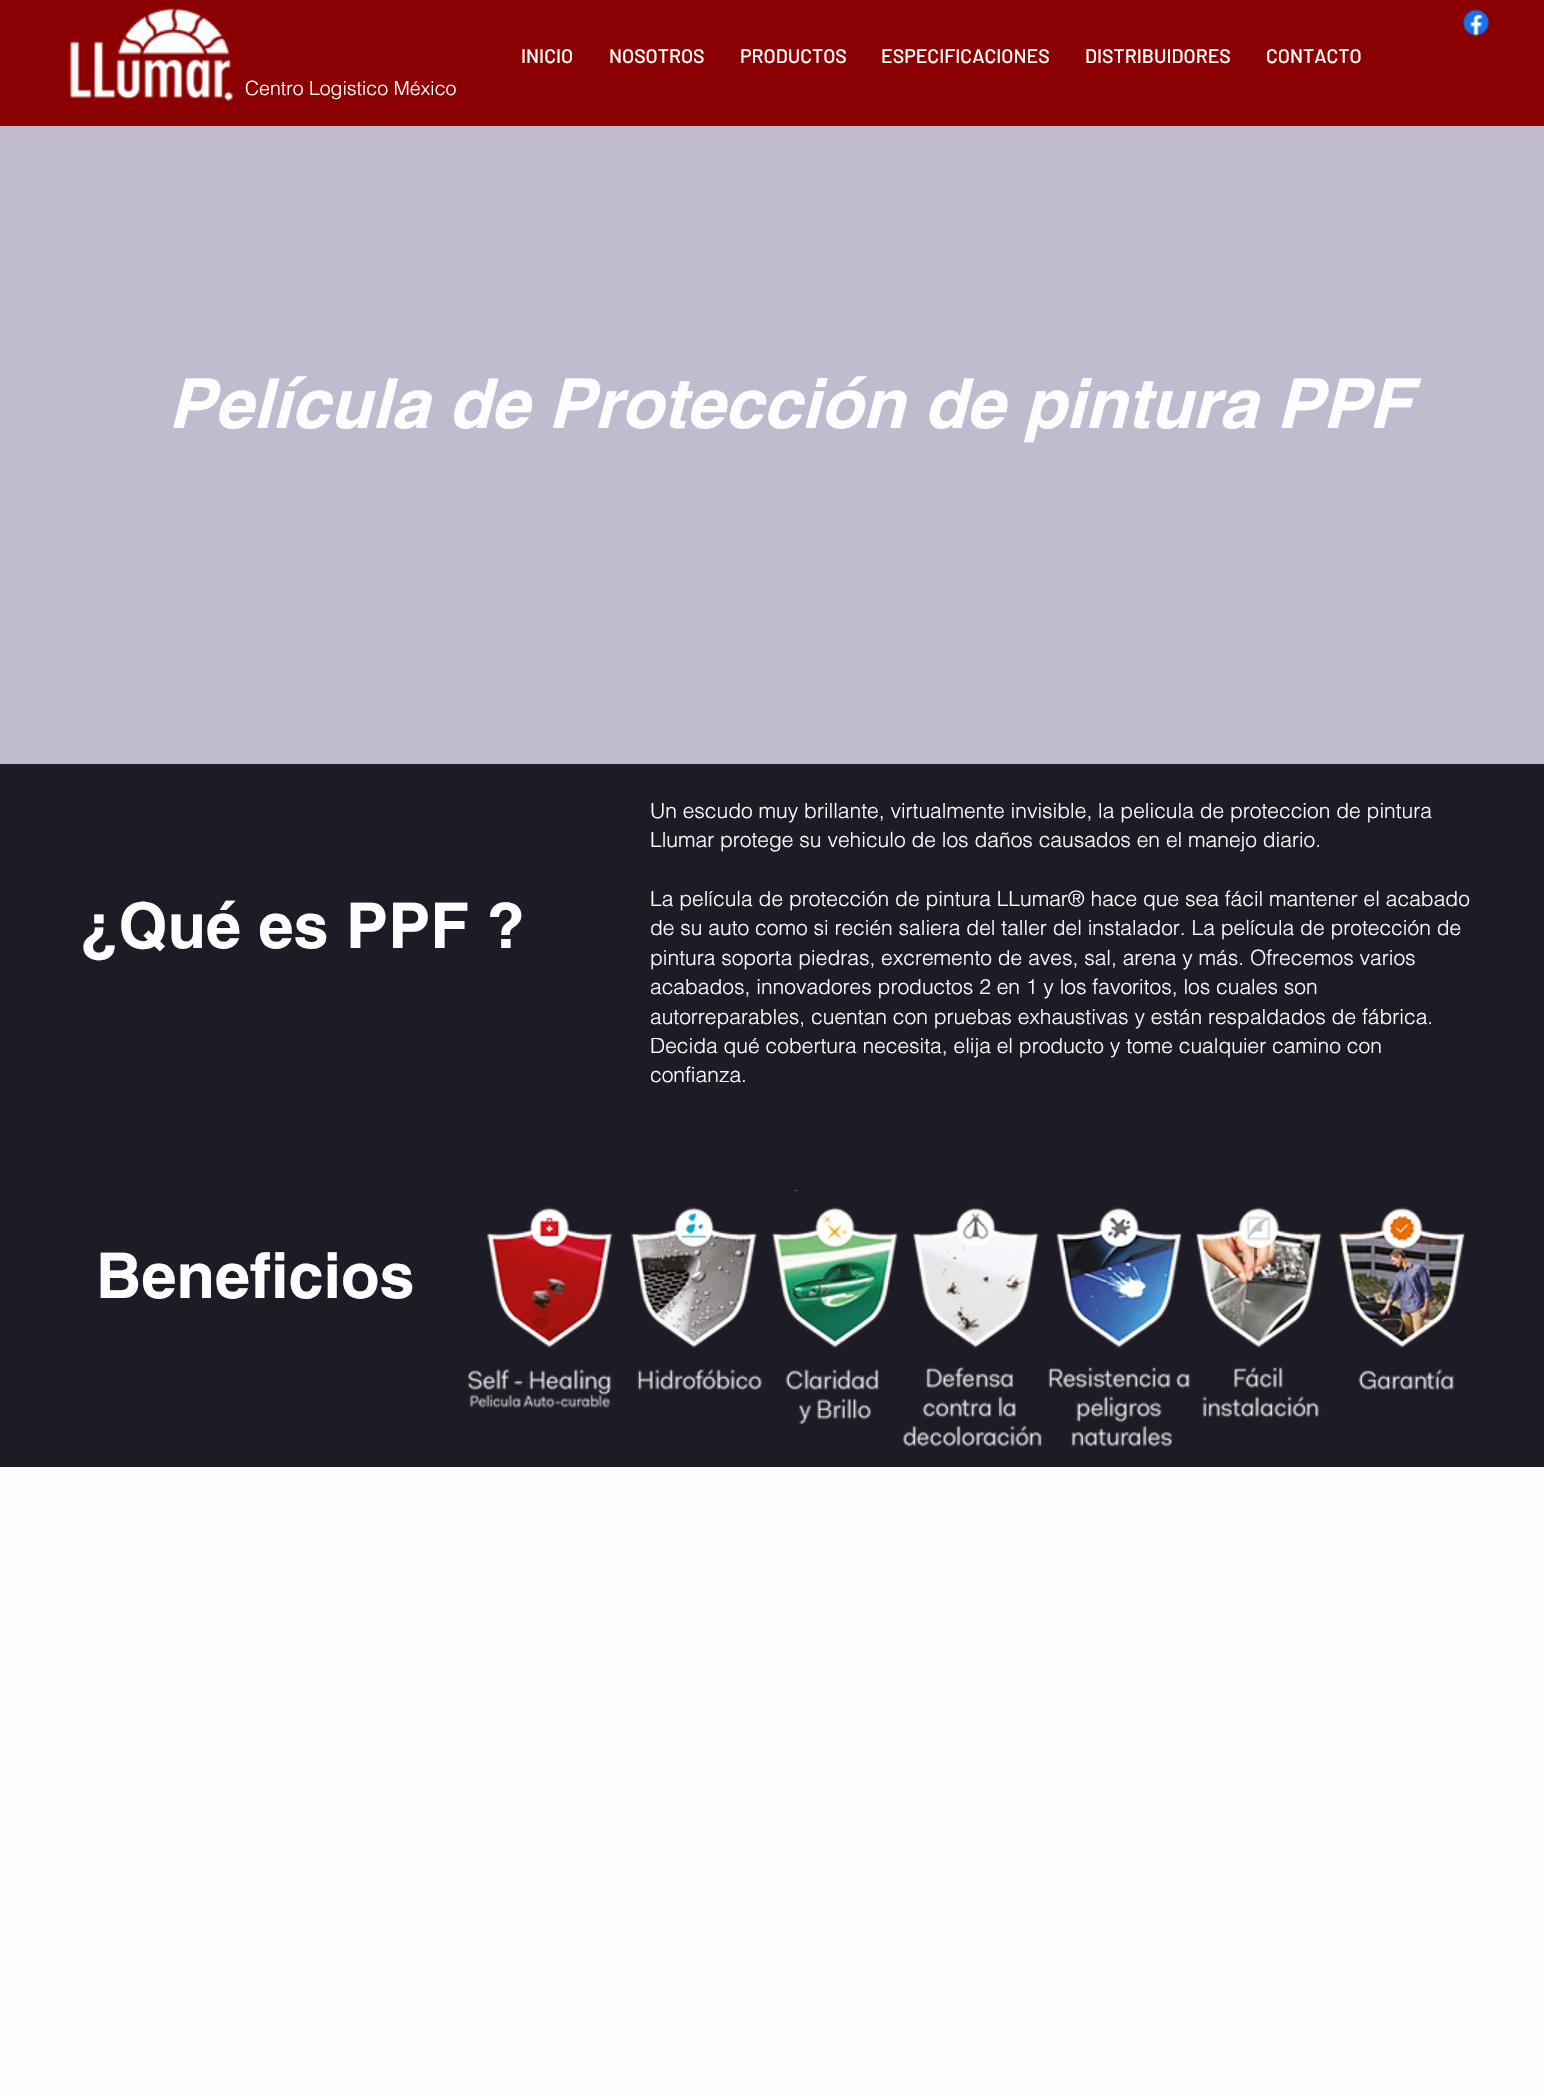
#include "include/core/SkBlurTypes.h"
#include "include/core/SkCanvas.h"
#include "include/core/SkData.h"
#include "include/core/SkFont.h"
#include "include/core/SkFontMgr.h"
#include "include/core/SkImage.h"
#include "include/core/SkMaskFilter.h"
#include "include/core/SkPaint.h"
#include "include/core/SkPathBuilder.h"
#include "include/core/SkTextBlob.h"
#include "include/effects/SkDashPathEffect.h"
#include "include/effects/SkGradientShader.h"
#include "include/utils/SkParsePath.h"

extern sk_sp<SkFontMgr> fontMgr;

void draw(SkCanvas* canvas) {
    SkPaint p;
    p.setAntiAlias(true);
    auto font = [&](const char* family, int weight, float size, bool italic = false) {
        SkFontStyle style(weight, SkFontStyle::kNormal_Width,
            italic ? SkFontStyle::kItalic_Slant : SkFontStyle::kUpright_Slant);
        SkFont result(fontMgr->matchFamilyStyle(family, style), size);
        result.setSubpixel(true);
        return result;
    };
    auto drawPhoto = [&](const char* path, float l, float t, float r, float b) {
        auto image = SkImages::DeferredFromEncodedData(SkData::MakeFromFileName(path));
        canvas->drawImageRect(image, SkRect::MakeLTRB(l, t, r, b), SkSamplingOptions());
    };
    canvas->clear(0xFFFEFDFE);
    p.setColor(0xFF8B0000);
    canvas->drawRect(SkRect::MakeLTRB(0, 0, 1544, 126), p);
    drawPhoto("media/1.png", 70, 8, 233, 101);
    drawPhoto("media/2.png", 1462, 8, 1490, 37);
    auto font1 = font("Barlow", 500, 19.5f);
    p.setColor(0xFFFEFDFE);
    {
        const struct { const char* s; float x, y; } items[] = {
            {"INICIO", 521, 63},
            {"NOSOTROS", 609, 63},
            {"PRODUCTOS", 740, 63},
            {"ESPECIFICACIONES", 881, 63},
            {"DISTRIBUIDORES", 1085, 63},
            {"CONTACTO", 1266, 63},
        };
        for (auto [s, x, y] : items) {
            canvas->drawString(s, x, y, font1, p);
        }
    }
    auto font2 = font("helvetica", 300, 19.5f);
    canvas->drawString("Centro Logistico México", 245, 95, font2, p);
    p.setColor(0xFFC0BBCF);
    canvas->drawRect(SkRect::MakeLTRB(0, 126, 1544, 764), p);
    auto font3 = font("helvetica", 700, 69, true);
    p.setColor(0xFFFEFDFE);
    canvas->drawString("Película de Protección de pintura PPF", 168, 428, font3, p);
    p.setColor(0xFF1D1B25);
    canvas->drawRect(SkRect::MakeLTRB(0, 764, 1544, 1467), p);
    auto font4 = font("helvetica", 700, 63);
    p.setColor(0xFFFEFDFE);
    canvas->drawString("¿Qué es PPF ?", 80, 948, font4, p);
    auto font5 = font("helvetica", 300, 21);
    {
        const struct { const char* s; float x, y; } items[] = {
            {"Un escudo muy brillante, virtualmente invisible, la pelicula de proteccion de pintura", 650, 818},
            {"Llumar protege su vehiculo de los daños causados en el manejo diario.", 650, 847},
            {"La película de protección de pintura LLumar® hace que sea fácil mantener el acabado", 650, 906},
            {"de su auto como si recién saliera del taller del instalador. La película de protección de", 650, 935},
            {"pintura soporta piedras, excremento de aves, sal, arena y más. Ofrecemos varios", 650, 965},
            {"acabados, innovadores productos 2 en 1 y los favoritos, los cuales son", 650, 994},
            {"autorreparables, cuentan con pruebas exhaustivas y están respaldados de fábrica.", 650, 1024},
            {"Decida qué cobertura necesita, elija el producto y tome cualquier camino con", 650, 1053},
            {"confianza.", 650, 1082},
        };
        for (auto [s, x, y] : items) {
            canvas->drawString(s, x, y, font5, p);
        }
    }
    canvas->drawString("Beneficios", 96, 1298, font4, p);
    drawPhoto("media/3.png", 467, 1189, 1465, 1447);
}
